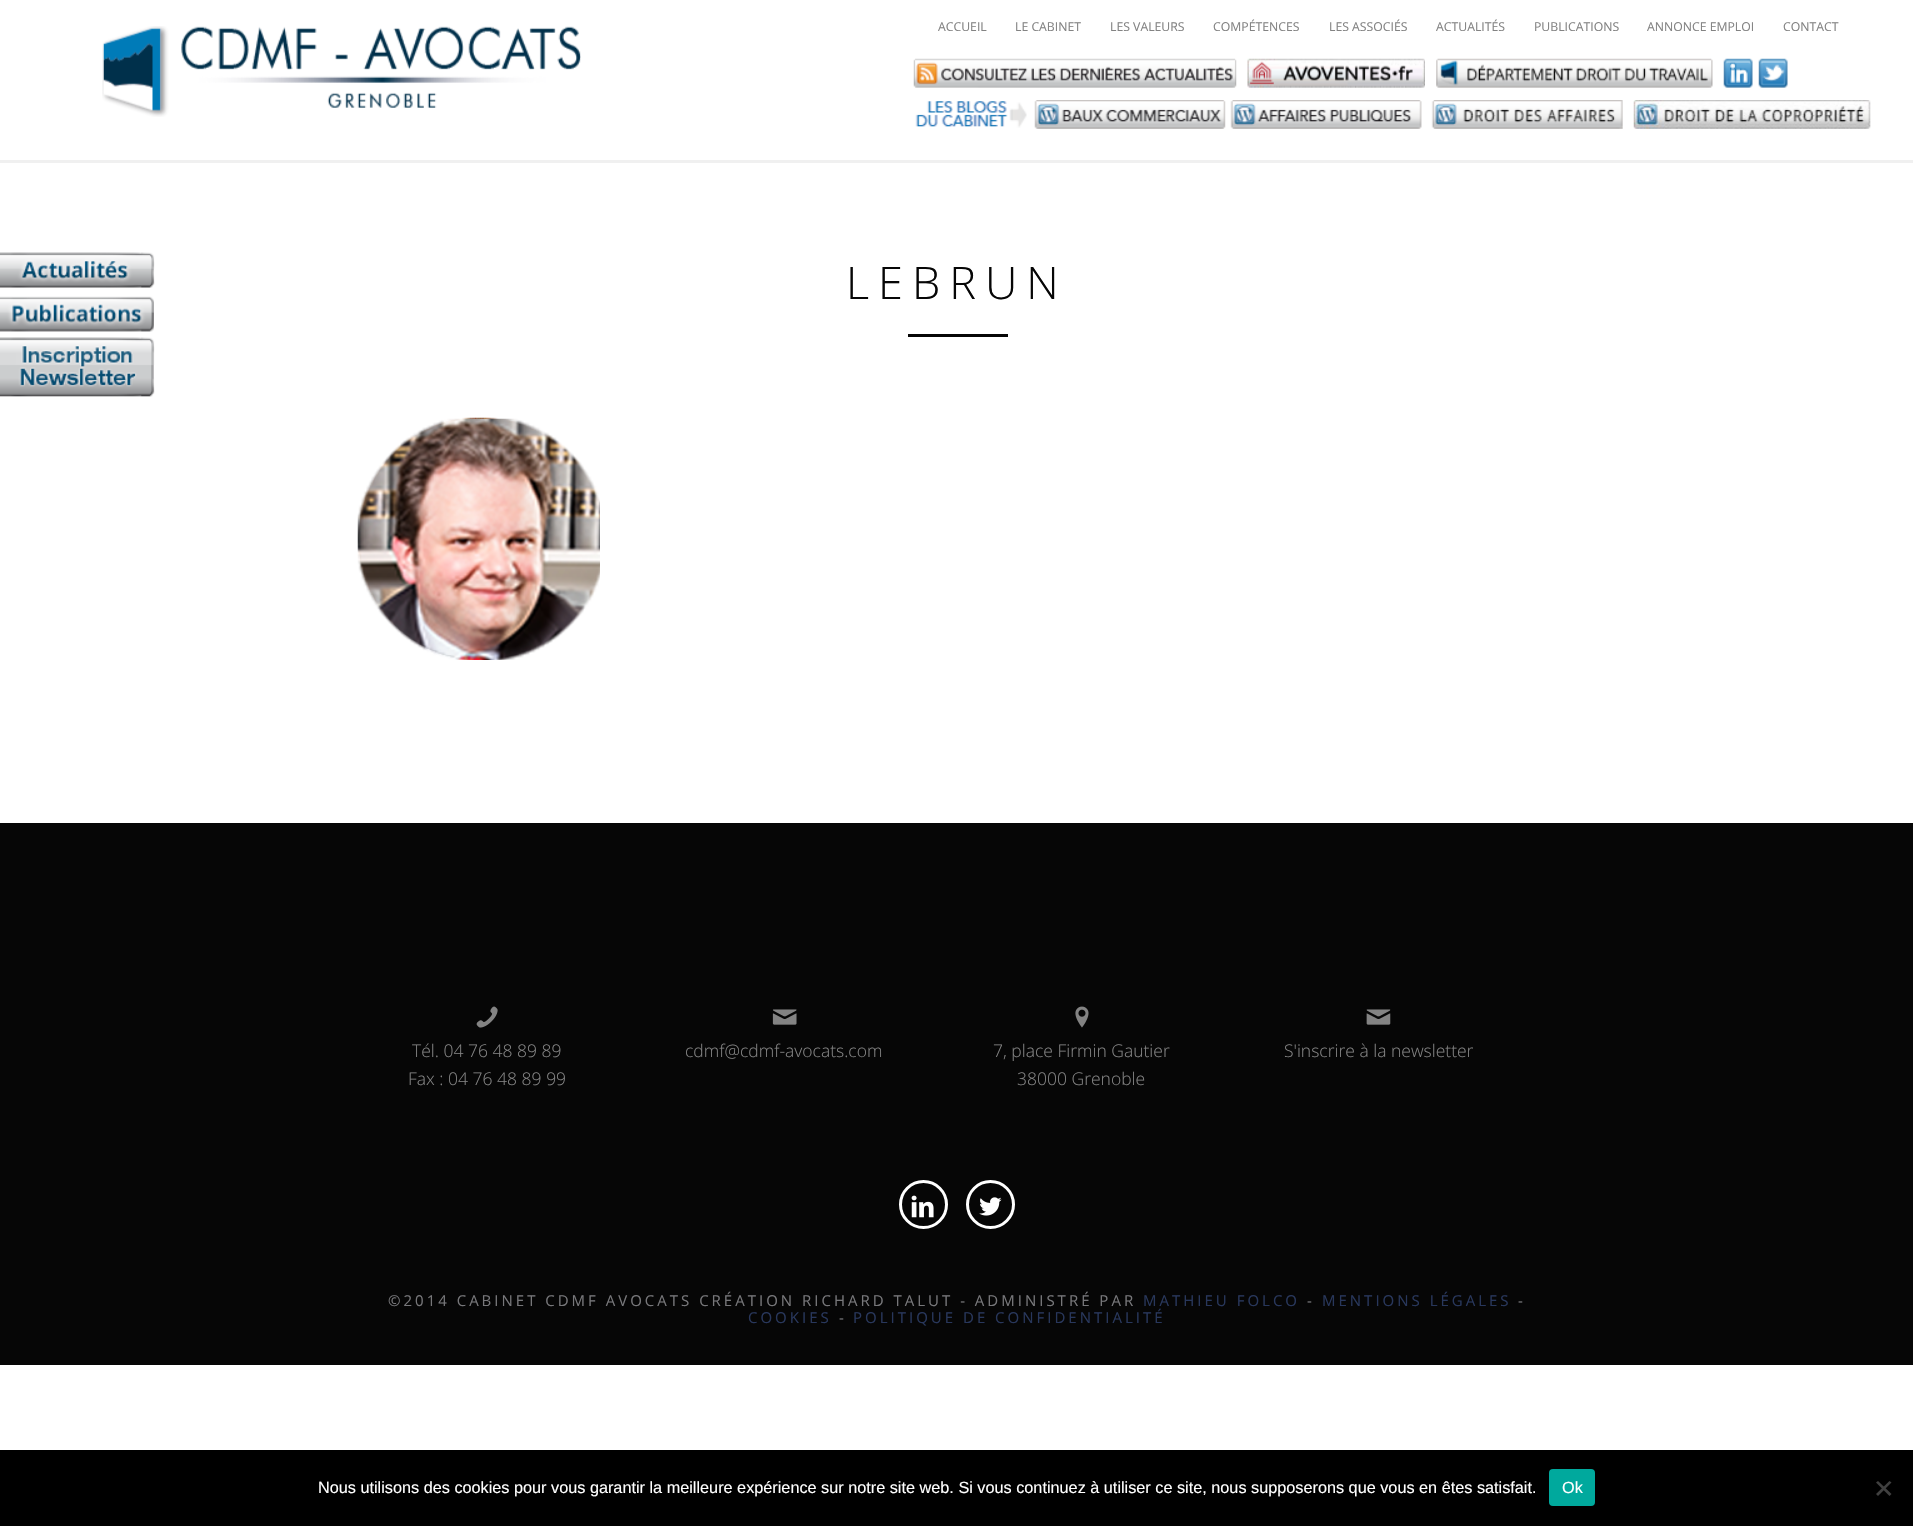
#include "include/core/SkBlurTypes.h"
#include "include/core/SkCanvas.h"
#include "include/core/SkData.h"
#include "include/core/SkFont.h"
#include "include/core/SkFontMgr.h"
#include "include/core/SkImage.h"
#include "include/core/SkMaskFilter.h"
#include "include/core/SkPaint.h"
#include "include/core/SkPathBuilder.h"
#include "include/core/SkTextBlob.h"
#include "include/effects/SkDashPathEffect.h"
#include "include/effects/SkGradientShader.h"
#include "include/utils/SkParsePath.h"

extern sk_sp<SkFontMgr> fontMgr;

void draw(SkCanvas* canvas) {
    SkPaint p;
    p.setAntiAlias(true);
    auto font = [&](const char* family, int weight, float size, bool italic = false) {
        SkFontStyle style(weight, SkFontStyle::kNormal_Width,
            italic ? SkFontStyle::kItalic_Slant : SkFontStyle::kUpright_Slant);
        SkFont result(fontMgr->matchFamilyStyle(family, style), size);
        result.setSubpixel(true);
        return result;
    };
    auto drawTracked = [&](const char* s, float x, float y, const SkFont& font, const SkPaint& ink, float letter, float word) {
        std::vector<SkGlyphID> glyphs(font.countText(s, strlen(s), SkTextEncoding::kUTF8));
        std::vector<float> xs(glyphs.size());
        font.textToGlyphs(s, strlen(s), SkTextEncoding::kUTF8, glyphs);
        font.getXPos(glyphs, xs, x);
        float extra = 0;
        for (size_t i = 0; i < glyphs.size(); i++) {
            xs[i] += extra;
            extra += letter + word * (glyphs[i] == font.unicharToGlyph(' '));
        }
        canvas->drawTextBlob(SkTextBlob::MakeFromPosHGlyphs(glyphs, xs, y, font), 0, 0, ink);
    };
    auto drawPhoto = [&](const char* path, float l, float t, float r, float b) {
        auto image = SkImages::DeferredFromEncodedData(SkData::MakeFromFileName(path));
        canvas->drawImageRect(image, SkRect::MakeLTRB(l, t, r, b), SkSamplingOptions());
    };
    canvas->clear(0xFFFFFFFF);
    p.setColor(0xFFF0F0F0);
    canvas->drawRect(SkRect::MakeLTRB(0, 160, 1913, 163), p);
    drawPhoto("media/1.png", 102, 26, 581, 117);
    auto font1 = font("Open Sans", 400, 12.25f);
    p.setColor(0xFF838383);
    {
        const struct { const char* s; float x, y; } items[] = {
            {"ACCUEIL", 938, 31},
            {"LE CABINET", 1015, 31},
            {"LES VALEURS", 1110, 31},
            {"COMPÉTENCES", 1213, 31},
            {"LES ASSOCIÉS", 1329, 31},
            {"ACTUALITÉS", 1436, 31},
            {"PUBLICATIONS", 1534, 31},
            {"ANNONCE EMPLOI", 1647, 31},
            {"CONTACT", 1783, 31},
        };
        for (auto [s, x, y] : items) {
            canvas->drawString(s, x, y, font1, p);
        }
    }
    drawPhoto("media/2.png", 913, 58, 1237, 88);
    drawPhoto("media/3.png", 1247, 58, 1425, 88);
    drawPhoto("media/4.png", 1436, 58, 1713, 88);
    drawPhoto("media/5.png", 1723, 58, 1753, 88);
    drawPhoto("media/6.png", 1758, 58, 1788, 88);
    drawPhoto("media/7.png", 915, 101, 1027, 128);
    drawPhoto("media/8.png", 1034, 100, 1226, 129);
    drawPhoto("media/9.png", 1230, 100, 1422, 129);
    drawPhoto("media/10.png", 1431, 100, 1623, 129);
    drawPhoto("media/11.png", 1633, 100, 1871, 129);
    drawPhoto("media/12.png", 0, 252, 155, 288);
    drawPhoto("media/13.png", 0, 296, 154, 332);
    drawPhoto("media/14.png", 0, 337, 155, 397);
    auto font2 = font("Open Sans", 300, 45);
    p.setColor(0xFF060606);
    drawTracked("LEBRUN", 846, 299, font2, p, 9, 0);
    canvas->drawRect(SkRect::MakeLTRB(908, 334, 1008, 337), p);
    drawPhoto("media/15.png", 357, 417, 600, 660);
    canvas->drawRect(SkRect::MakeLTRB(0, 823, 1913, 1365), p);
    drawPhoto("media/16.png", 476, 1006, 498, 1028);
    auto font3 = font("Open Sans", 300, 17.5f);
    p.setColor(0xFF838383);
    canvas->drawString("Tél. 04 76 48 89 89", 412, 1057, font3, p);
    canvas->drawString("Fax : 04 76 48 89 99", 408, 1085, font3, p);
    drawPhoto("media/17.png", 772, 1009, 797, 1025);
    canvas->drawString("cdmf@cdmf-avocats.com", 685, 1057, font3, p);
    drawPhoto("media/18.png", 1075, 1006, 1089, 1028);
    canvas->drawString("7, place Firmin Gautier", 993, 1057, font3, p);
    canvas->drawString("38000 Grenoble", 1017, 1085, font3, p);
    drawPhoto("media/19.png", 1366, 1009, 1391, 1025);
    canvas->drawString("S'inscrire à la newsletter", 1284, 1057, font3, p);
    p.setStyle(SkPaint::kStroke_Style);
    p.setStrokeWidth(3);
    p.setColor(0xFFFFFFFF);
    canvas->drawCircle(923.5f, 1204.5f, 23, p);
    drawPhoto("media/20.png", 911, 1195, 934, 1218);
    canvas->drawCircle(990.5f, 1204.5f, 23, p);
    drawPhoto("media/21.png", 979, 1197, 1002, 1216);
    auto font4 = font("Open Sans", 400, 15);
    p.setStyle(SkPaint::kFill_Style);
    p.setColor(0xFF77777A);
    drawTracked("©2014 CABINET CDMF AVOCATS CRÉATION RICHARD TALUT - ADMINISTRÉ PAR", 388, 1306, font4, p, 3, 0);
    p.setColor(0xFF28375C);
    drawTracked("MATHIEU FOLCO", 1143, 1306, font4, p, 3, 0);
    p.setColor(0xFF77777A);
    drawTracked("-", 1307, 1306, font4, p, 3, 0);
    p.setColor(0xFF28375C);
    drawTracked("MENTIONS LÉGALES", 1322, 1306, font4, p, 3, 0);
    p.setColor(0xFF77777A);
    drawTracked("-", 1518, 1306, font4, p, 3, 0);
    p.setColor(0xFF28375C);
    drawTracked("COOKIES", 748, 1323, font4, p, 3, 0);
    p.setColor(0xFF77777A);
    drawTracked("-", 839, 1323, font4, p, 3, 0);
    p.setColor(0xFF28375C);
    drawTracked("POLITIQUE DE CONFIDENTIALITÉ", 853, 1323, font4, p, 3, 0);
    p.setColor(0xFF000000);
    canvas->drawRect(SkRect::MakeLTRB(0, 1450, 1913, 1526), p);
    auto font5 = font("Liberation Sans", 400, 16.25f);
    p.setColor(0xFFFFFFFF);
    canvas->drawString("Nous utilisons des cookies pour vous garantir la meilleure expérience sur notre site web. Si vous continuez à utiliser ce site, nous supposerons que vous en êtes satisfait.", 318, 1493, font5, p);
    p.setColor(0xFF00A99D);
    canvas->drawRoundRect(SkRect::MakeLTRB(1549, 1469, 1595, 1506), 4, 4, p);
    p.setColor(0xFFFFFFFF);
    canvas->drawString("Ok", 1562, 1493, font5, p);
    p.setColor(0xFF404040);
    canvas->drawPath(SkPathBuilder().moveTo(1889.5f, 1481).lineTo(1891.5f, 1482.5f).lineTo(1878, 1496).lineTo(1876, 1494).close().detach(), p);
    canvas->drawPath(SkPathBuilder().moveTo(1876, 1482.5f).lineTo(1878, 1481).lineTo(1891.5f, 1494).lineTo(1889.5f, 1496).close().detach(), p);
}
